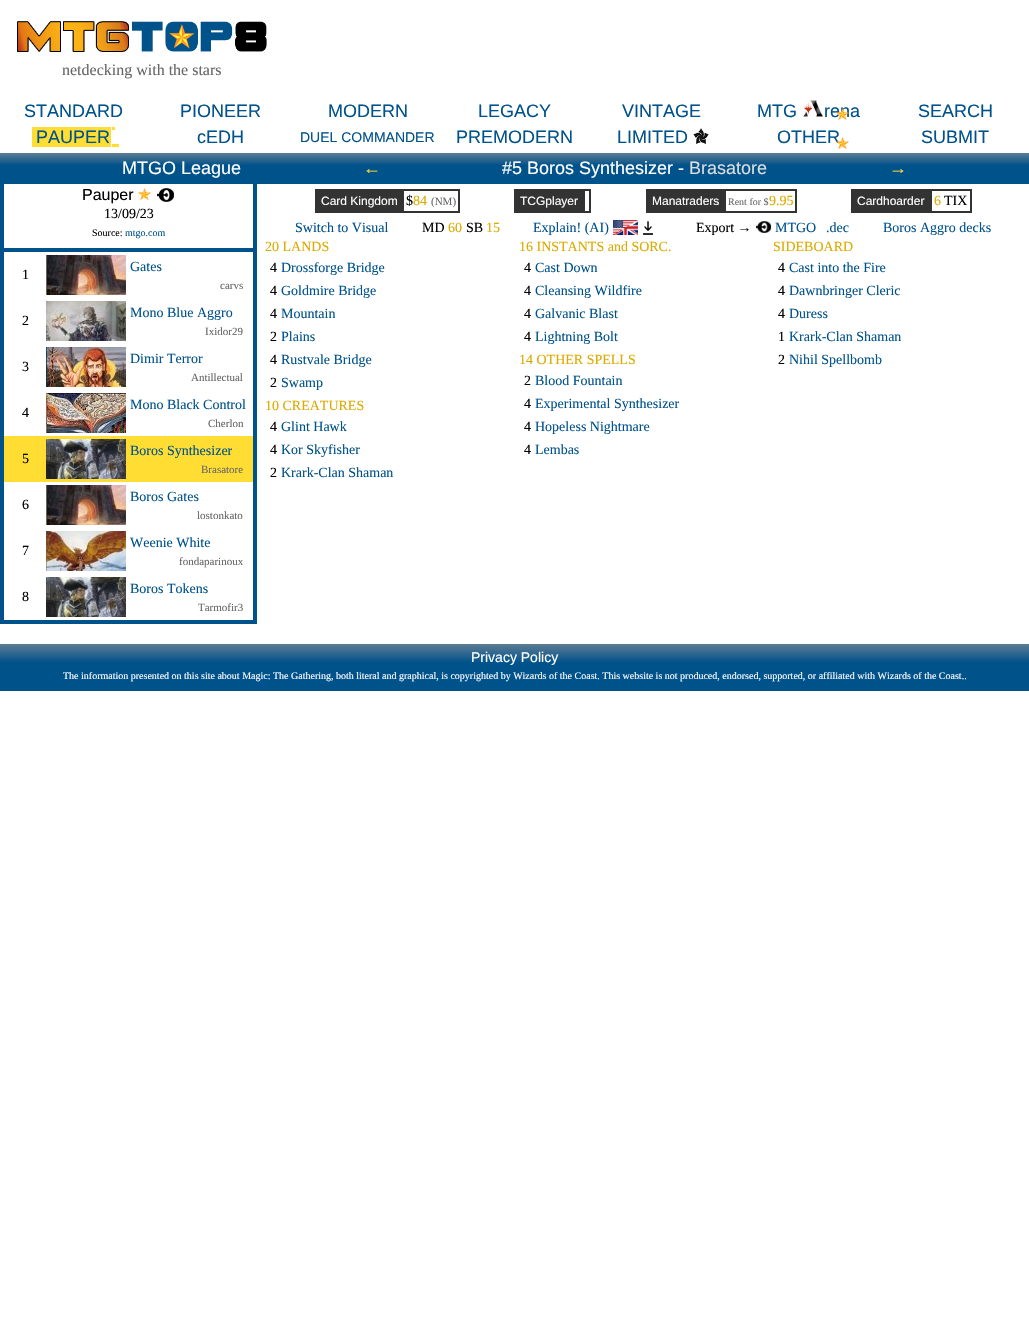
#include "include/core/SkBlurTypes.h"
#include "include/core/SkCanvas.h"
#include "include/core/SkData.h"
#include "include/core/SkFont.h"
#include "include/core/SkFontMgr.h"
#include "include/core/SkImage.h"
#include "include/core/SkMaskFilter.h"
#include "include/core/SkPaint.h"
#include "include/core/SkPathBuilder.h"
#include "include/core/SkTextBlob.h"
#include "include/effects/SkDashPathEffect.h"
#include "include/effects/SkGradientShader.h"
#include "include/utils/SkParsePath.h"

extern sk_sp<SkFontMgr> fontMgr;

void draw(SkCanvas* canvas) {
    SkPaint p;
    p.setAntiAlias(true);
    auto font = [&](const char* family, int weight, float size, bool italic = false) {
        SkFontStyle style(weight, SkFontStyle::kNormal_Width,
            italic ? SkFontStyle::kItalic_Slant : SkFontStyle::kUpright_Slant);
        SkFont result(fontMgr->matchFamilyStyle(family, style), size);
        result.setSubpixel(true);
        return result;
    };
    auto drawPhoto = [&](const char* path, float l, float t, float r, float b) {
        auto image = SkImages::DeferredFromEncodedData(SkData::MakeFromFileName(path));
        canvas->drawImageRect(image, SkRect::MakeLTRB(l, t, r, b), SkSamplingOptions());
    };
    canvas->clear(0xFFFFFFFF);
    drawPhoto("media/1.png", 17, 21, 267, 52);
    auto font1 = font("Liberation Serif", 400, 16);
    p.setColor(0xFF666666);
    canvas->drawString("netdecking with the stars", 62, 75, font1, p);
    auto font2 = font("Liberation Sans", 400, 18);
    p.setColor(0xFF00528B);
    {
        const struct { const char* s; float x, y; } items[] = {
            {"STANDARD", 24, 117},
            {"PIONEER", 180, 117},
            {"MODERN", 328, 117},
            {"LEGACY", 478, 117},
            {"VINTAGE", 622, 117},
            {"MTG", 757, 117},
        };
        for (auto [s, x, y] : items) {
            canvas->drawString(s, x, y, font2, p);
        }
    }
    drawPhoto("media/2.png", 803, 100, 823, 117);
    canvas->drawString("rena", 824, 117, font2, p);
    canvas->drawString("SEARCH", 918, 117, font2, p);
    drawPhoto("media/3.png", 836, 108, 849, 120);
    p.setColor(0xFFFFDD33);
    canvas->drawRect(SkRect::MakeLTRB(32, 127, 111, 147), p);
    p.setColor(0xFF00528B);
    canvas->drawString("PAUPER", 36, 143, font2, p);
    p.setColor(0xFFFFDD33);
    canvas->drawRect(SkRect::MakeLTRB(112, 127, 115, 130), p);
    canvas->drawRect(SkRect::MakeLTRB(112, 144, 119, 147), p);
    p.setColor(0xFF00528B);
    canvas->drawString("cEDH", 197, 143, font2, p);
    auto font3 = font("Liberation Sans", 400, 14);
    canvas->drawString("DUEL COMMANDER", 300, 142, font3, p);
    canvas->drawString("PREMODERN", 456, 143, font2, p);
    canvas->drawString("LIMITED", 617, 143, font2, p);
    drawPhoto("media/4.png", 693, 128, 709, 144);
    canvas->drawString("OTHER", 777, 143, font2, p);
    canvas->drawString("SUBMIT", 921, 143, font2, p);
    drawPhoto("media/5.png", 836, 137, 849, 149);
    {
        const SkColor colors[] = {0xFF5D7C93, 0xFF00528B, 0xFF00528B};
        const float stops[] = {0, 0.4f, 1};
        const SkPoint ends[] = {{515, 153}, {515, 184}};
        p.setShader(SkGradientShader::MakeLinear(ends, colors, stops, 3, SkTileMode::kClamp));
        p.setAlpha(255);
    }
    canvas->drawRect(SkRect::MakeLTRB(0, 153, 1029, 184), p);
    p.setShader(nullptr);
    p.setColor(0xFFFFFFFF);
    canvas->drawString("MTGO League", 122, 174, font2, p);
    p.setColor(0xFFFFDD33);
    canvas->drawString("←", 363, 174, font2, p);
    p.setColor(0xFFFFFFFF);
    canvas->drawString("#5 Boros Synthesizer -", 502, 174, font2, p);
    p.setColor(0xFFDDDDDD);
    canvas->drawString("Brasatore", 689, 174, font2, p);
    p.setColor(0xFFFFDD33);
    canvas->drawString("→", 889, 174, font2, p);
    p.setColor(0xFF00528B);
    canvas->drawRect(SkRect::MakeLTRB(0, 184, 257, 624), p);
    p.setColor(0xFFFFFFFF);
    canvas->drawRect(SkRect::MakeLTRB(4, 184, 253, 248), p);
    auto font4 = font("Liberation Sans", 400, 16);
    p.setColor(0xFF000000);
    canvas->drawString("Pauper", 82, 200, font4, p);
    drawPhoto("media/6.png", 138, 188, 151, 200);
    drawPhoto("media/7.png", 157, 188, 174, 202);
    auto font5 = font("Liberation Serif", 400, 14);
    canvas->drawString("13/09/23", 104, 218, font5, p);
    auto font6 = font("Liberation Serif", 400, 10);
    canvas->drawString("Source:", 92, 236, font6, p);
    p.setColor(0xFF00528B);
    canvas->drawString("mtgo.com", 125, 236, font6, p);
    p.setColor(0xFFFFFFFF);
    canvas->drawRect(SkRect::MakeLTRB(4, 252, 253, 436), p);
    p.setColor(0xFF000000);
    canvas->drawString("1", 22, 279, font5, p);
    drawPhoto("media/8.png", 46, 255, 126, 295);
    p.setColor(0xFF00528B);
    canvas->drawString("Gates", 130, 271, font5, p);
    auto font7 = font("Liberation Serif", 400, 11);
    p.setColor(0xFF666666);
    canvas->drawString("carvs", 220, 289, font7, p);
    p.setColor(0xFF000000);
    canvas->drawString("2", 22, 325, font5, p);
    drawPhoto("media/9.png", 46, 301, 126, 341);
    p.setColor(0xFF00528B);
    canvas->drawString("Mono Blue Aggro", 130, 317, font5, p);
    p.setColor(0xFF666666);
    canvas->drawString("Ixidor29", 205, 335, font7, p);
    p.setColor(0xFF000000);
    canvas->drawString("3", 22, 371, font5, p);
    drawPhoto("media/10.png", 46, 347, 126, 387);
    p.setColor(0xFF00528B);
    canvas->drawString("Dimir Terror", 130, 363, font5, p);
    p.setColor(0xFF666666);
    canvas->drawString("Antillectual", 191, 381, font7, p);
    p.setColor(0xFF000000);
    canvas->drawString("4", 22, 417, font5, p);
    drawPhoto("media/11.png", 46, 393, 126, 433);
    p.setColor(0xFF00528B);
    canvas->drawString("Mono Black Control", 130, 409, font5, p);
    p.setColor(0xFF666666);
    canvas->drawString("Cherlon", 208, 427, font7, p);
    p.setColor(0xFFFFDD33);
    canvas->drawRect(SkRect::MakeLTRB(4, 436, 253, 482), p);
    p.setColor(0xFF000000);
    canvas->drawString("5", 22, 463, font5, p);
    drawPhoto("media/12.png", 46, 439, 126, 479);
    p.setColor(0xFF00528B);
    canvas->drawString("Boros Synthesizer", 130, 455, font5, p);
    p.setColor(0xFF666666);
    canvas->drawString("Brasatore", 201, 473, font7, p);
    p.setColor(0xFFFFFFFF);
    canvas->drawRect(SkRect::MakeLTRB(4, 482, 253, 620), p);
    p.setColor(0xFF000000);
    canvas->drawString("6", 22, 509, font5, p);
    drawPhoto("media/8.png", 46, 485, 126, 525);
    p.setColor(0xFF00528B);
    canvas->drawString("Boros Gates", 130, 501, font5, p);
    p.setColor(0xFF666666);
    canvas->drawString("lostonkato", 197, 519, font7, p);
    p.setColor(0xFF000000);
    canvas->drawString("7", 22, 555, font5, p);
    drawPhoto("media/13.png", 46, 531, 126, 571);
    p.setColor(0xFF00528B);
    canvas->drawString("Weenie White", 130, 547, font5, p);
    p.setColor(0xFF666666);
    canvas->drawString("fondaparinoux", 179, 565, font7, p);
    p.setColor(0xFF000000);
    canvas->drawString("8", 22, 601, font5, p);
    drawPhoto("media/12.png", 46, 577, 126, 617);
    p.setColor(0xFF00528B);
    canvas->drawString("Boros Tokens", 130, 593, font5, p);
    p.setColor(0xFF666666);
    canvas->drawString("Tarmofir3", 198, 611, font7, p);
    p.setColor(0xFF333333);
    canvas->drawRect(SkRect::MakeLTRB(315, 189, 460, 213), p);
    auto font8 = font("Liberation Sans", 400, 12);
    p.setColor(0xFFFFFFFF);
    canvas->drawString("Card Kingdom", 321, 205, font8, p);
    canvas->drawRect(SkRect::MakeLTRB(404, 191, 458, 211), p);
    p.setColor(0xFF000000);
    canvas->drawString("$", 406, 205, font5, p);
    p.setColor(0xFFDDAA00);
    canvas->drawString("84", 413, 205, font5, p);
    p.setColor(0xFF666666);
    canvas->drawString("(NM)", 431, 205, font7, p);
    p.setColor(0xFF333333);
    canvas->drawRect(SkRect::MakeLTRB(514, 189, 591, 213), p);
    p.setColor(0xFFFFFFFF);
    canvas->drawString("TCGplayer", 520, 205, font8, p);
    canvas->drawRect(SkRect::MakeLTRB(585, 191, 589, 211), p);
    p.setColor(0xFF333333);
    canvas->drawRect(SkRect::MakeLTRB(646, 189, 797, 213), p);
    p.setColor(0xFFFFFFFF);
    canvas->drawString("Manatraders", 652, 205, font8, p);
    canvas->drawRect(SkRect::MakeLTRB(726, 191, 795, 211), p);
    p.setColor(0xFF666666);
    canvas->drawString("Rent for $", 728, 205, font6, p);
    p.setColor(0xFFDDAA00);
    canvas->drawString("9.95", 769, 205, font5, p);
    p.setColor(0xFF333333);
    canvas->drawRect(SkRect::MakeLTRB(851, 189, 972, 213), p);
    p.setColor(0xFFFFFFFF);
    canvas->drawString("Cardhoarder", 857, 205, font8, p);
    canvas->drawRect(SkRect::MakeLTRB(932, 191, 970, 211), p);
    p.setColor(0xFFDDAA00);
    canvas->drawString("6", 934, 205, font5, p);
    p.setColor(0xFF000000);
    canvas->drawString("TIX", 944, 205, font5, p);
    p.setColor(0xFF00528B);
    canvas->drawString("Switch to Visual", 295, 232, font5, p);
    p.setColor(0xFF000000);
    canvas->drawString("MD", 422, 232, font5, p);
    p.setColor(0xFFDDAA00);
    canvas->drawString("60", 448, 232, font5, p);
    p.setColor(0xFF000000);
    canvas->drawString("SB", 466, 232, font5, p);
    p.setColor(0xFFDDAA00);
    canvas->drawString("15", 486, 232, font5, p);
    p.setColor(0xFF00528B);
    canvas->drawString("Explain! (AI)", 533, 232, font5, p);
    drawPhoto("media/14.png", 613, 220, 638, 235);
    drawPhoto("media/15.png", 643, 221, 653, 235);
    p.setColor(0xFF000000);
    canvas->drawString("Export →", 696, 232, font5, p);
    drawPhoto("media/16.png", 756, 221, 772, 233);
    p.setColor(0xFF00528B);
    {
        const struct { const char* s; float x, y; } items[] = {
            {"MTGO", 775, 232},
            {".dec", 826, 232},
            {"Boros Aggro decks", 883, 232},
        };
        for (auto [s, x, y] : items) {
            canvas->drawString(s, x, y, font5, p);
        }
    }
    p.setColor(0xFFDDAA00);
    canvas->drawString("20 LANDS", 265, 251, font5, p);
    p.setColor(0xFF000000);
    canvas->drawString("4", 270, 272, font5, p);
    p.setColor(0xFF00528B);
    canvas->drawString("Drossforge Bridge", 281, 272, font5, p);
    p.setColor(0xFF000000);
    canvas->drawString("4", 270, 295, font5, p);
    p.setColor(0xFF00528B);
    canvas->drawString("Goldmire Bridge", 281, 295, font5, p);
    p.setColor(0xFF000000);
    canvas->drawString("4", 270, 318, font5, p);
    p.setColor(0xFF00528B);
    canvas->drawString("Mountain", 281, 318, font5, p);
    p.setColor(0xFF000000);
    canvas->drawString("2", 270, 341, font5, p);
    p.setColor(0xFF00528B);
    canvas->drawString("Plains", 281, 341, font5, p);
    p.setColor(0xFF000000);
    canvas->drawString("4", 270, 364, font5, p);
    p.setColor(0xFF00528B);
    canvas->drawString("Rustvale Bridge", 281, 364, font5, p);
    p.setColor(0xFF000000);
    canvas->drawString("2", 270, 387, font5, p);
    p.setColor(0xFF00528B);
    canvas->drawString("Swamp", 281, 387, font5, p);
    p.setColor(0xFFDDAA00);
    canvas->drawString("10 CREATURES", 265, 410, font5, p);
    p.setColor(0xFF000000);
    canvas->drawString("4", 270, 431, font5, p);
    p.setColor(0xFF00528B);
    canvas->drawString("Glint Hawk", 281, 431, font5, p);
    p.setColor(0xFF000000);
    canvas->drawString("4", 270, 454, font5, p);
    p.setColor(0xFF00528B);
    canvas->drawString("Kor Skyfisher", 281, 454, font5, p);
    p.setColor(0xFF000000);
    canvas->drawString("2", 270, 477, font5, p);
    p.setColor(0xFF00528B);
    canvas->drawString("Krark-Clan Shaman", 281, 477, font5, p);
    p.setColor(0xFFDDAA00);
    canvas->drawString("16 INSTANTS and SORC.", 519, 251, font5, p);
    p.setColor(0xFF000000);
    canvas->drawString("4", 524, 272, font5, p);
    p.setColor(0xFF00528B);
    canvas->drawString("Cast Down", 535, 272, font5, p);
    p.setColor(0xFF000000);
    canvas->drawString("4", 524, 295, font5, p);
    p.setColor(0xFF00528B);
    canvas->drawString("Cleansing Wildfire", 535, 295, font5, p);
    p.setColor(0xFF000000);
    canvas->drawString("4", 524, 318, font5, p);
    p.setColor(0xFF00528B);
    canvas->drawString("Galvanic Blast", 535, 318, font5, p);
    p.setColor(0xFF000000);
    canvas->drawString("4", 524, 341, font5, p);
    p.setColor(0xFF00528B);
    canvas->drawString("Lightning Bolt", 535, 341, font5, p);
    p.setColor(0xFFDDAA00);
    canvas->drawString("14 OTHER SPELLS", 519, 364, font5, p);
    p.setColor(0xFF000000);
    canvas->drawString("2", 524, 385, font5, p);
    p.setColor(0xFF00528B);
    canvas->drawString("Blood Fountain", 535, 385, font5, p);
    p.setColor(0xFF000000);
    canvas->drawString("4", 524, 408, font5, p);
    p.setColor(0xFF00528B);
    canvas->drawString("Experimental Synthesizer", 535, 408, font5, p);
    p.setColor(0xFF000000);
    canvas->drawString("4", 524, 431, font5, p);
    p.setColor(0xFF00528B);
    canvas->drawString("Hopeless Nightmare", 535, 431, font5, p);
    p.setColor(0xFF000000);
    canvas->drawString("4", 524, 454, font5, p);
    p.setColor(0xFF00528B);
    canvas->drawString("Lembas", 535, 454, font5, p);
    p.setColor(0xFFDDAA00);
    canvas->drawString("SIDEBOARD", 773, 251, font5, p);
    p.setColor(0xFF000000);
    canvas->drawString("4", 778, 272, font5, p);
    p.setColor(0xFF00528B);
    canvas->drawString("Cast into the Fire", 789, 272, font5, p);
    p.setColor(0xFF000000);
    canvas->drawString("4", 778, 295, font5, p);
    p.setColor(0xFF00528B);
    canvas->drawString("Dawnbringer Cleric", 789, 295, font5, p);
    p.setColor(0xFF000000);
    canvas->drawString("4", 778, 318, font5, p);
    p.setColor(0xFF00528B);
    canvas->drawString("Duress", 789, 318, font5, p);
    p.setColor(0xFF000000);
    canvas->drawString("1", 778, 341, font5, p);
    p.setColor(0xFF00528B);
    canvas->drawString("Krark-Clan Shaman", 789, 341, font5, p);
    p.setColor(0xFF000000);
    canvas->drawString("2", 778, 364, font5, p);
    p.setColor(0xFF00528B);
    canvas->drawString("Nihil Spellbomb", 789, 364, font5, p);
    {
        const SkColor colors[] = {0xFF5D7C93, 0xFF00528B, 0xFF00528B};
        const float stops[] = {0, 0.4f, 1};
        const SkPoint ends[] = {{515, 644}, {515, 691}};
        p.setShader(SkGradientShader::MakeLinear(ends, colors, stops, 3, SkTileMode::kClamp));
        p.setAlpha(255);
    }
    canvas->drawRect(SkRect::MakeLTRB(0, 644, 1029, 691), p);
    p.setShader(nullptr);
    p.setColor(0xFFFFFFFF);
    canvas->drawString("Privacy Policy", 471, 662, font3, p);
    canvas->drawString("The information presented on this site about Magic: The Gathering, both literal and graphical, is copyrighted by Wizards of the Coast. This website is not produced, endorsed, supported, or affiliated with Wizards of the Coast..", 63, 679, font6, p);
}
